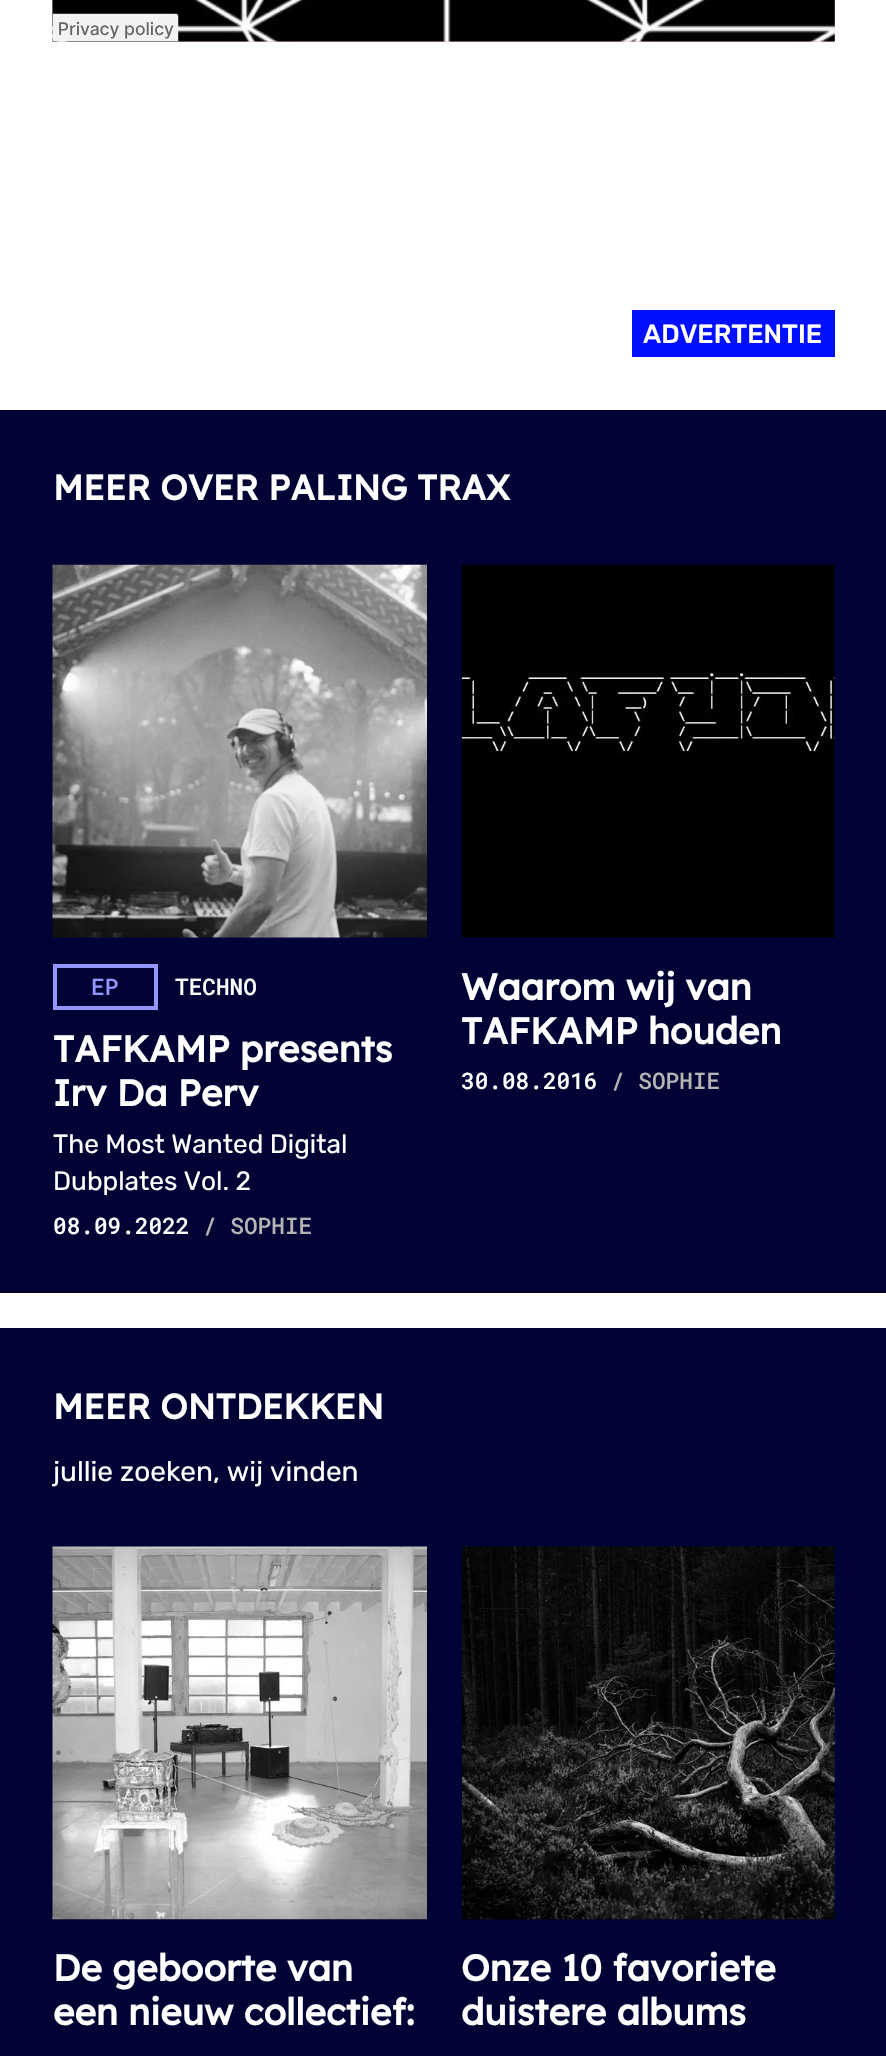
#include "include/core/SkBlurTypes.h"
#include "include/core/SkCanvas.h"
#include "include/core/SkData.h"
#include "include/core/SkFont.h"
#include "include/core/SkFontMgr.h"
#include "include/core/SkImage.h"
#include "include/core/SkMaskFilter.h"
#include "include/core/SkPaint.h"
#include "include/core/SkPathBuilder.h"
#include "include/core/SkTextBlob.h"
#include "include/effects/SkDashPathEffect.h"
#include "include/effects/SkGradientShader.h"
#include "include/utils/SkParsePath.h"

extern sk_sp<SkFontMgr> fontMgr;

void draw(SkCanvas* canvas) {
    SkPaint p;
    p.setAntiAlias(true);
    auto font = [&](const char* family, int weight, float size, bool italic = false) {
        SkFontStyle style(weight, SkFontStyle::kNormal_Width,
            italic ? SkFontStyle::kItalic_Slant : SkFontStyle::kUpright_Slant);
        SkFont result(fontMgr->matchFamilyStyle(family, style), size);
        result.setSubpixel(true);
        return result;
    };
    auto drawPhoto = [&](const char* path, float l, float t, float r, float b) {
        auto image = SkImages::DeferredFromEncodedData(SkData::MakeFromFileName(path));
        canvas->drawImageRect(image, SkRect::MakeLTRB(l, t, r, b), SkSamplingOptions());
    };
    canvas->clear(0xFFFFFFFF);
    drawPhoto("media/1.png", 52, 0, 835, 42);
    p.setColor(0xFF000FFF);
    canvas->drawRect(SkRect::MakeLTRB(632, 310, 835, 357), p);
    auto font1 = font("Rubik", 500, 26.25f);
    p.setColor(0xFFFFFFFF);
    canvas->drawString("ADVERTENTIE", 643, 343, font1, p);
    p.setColor(0xFF000333);
    canvas->drawRect(SkRect::MakeLTRB(0, 410, 886, 1293), p);
    auto font2 = font("Lexend Deca", 700, 35);
    p.setColor(0xFFFFFFFF);
    canvas->drawString("MEER OVER PALING TRAX", 53, 500, font2, p);
    drawPhoto("media/2.png", 52, 564, 427, 938);
    p.setStyle(SkPaint::kStroke_Style);
    p.setStrokeWidth(4);
    p.setColor(0xFF9497FF);
    canvas->drawRect(SkRect::MakeLTRB(55, 966, 156, 1008), p);
    auto font3 = font("Roboto Mono", 500, 22.75f);
    p.setStyle(SkPaint::kFill_Style);
    canvas->drawString("EP", 91, 995, font3, p);
    p.setColor(0xFFFFFFFF);
    canvas->drawString("TECHNO", 175, 995, font3, p);
    auto font4 = font("Lexend Deca", 700, 36.75f);
    canvas->drawString("TAFKAMP presents", 53, 1062, font4, p);
    canvas->drawString("Irv Da Perv", 53, 1106, font4, p);
    auto font5 = font("Rubik", 400, 26.25f);
    canvas->drawString("The Most Wanted Digital", 53, 1153, font5, p);
    canvas->drawString("Dubplates Vol. 2", 53, 1190, font5, p);
    canvas->drawString("08.09.2022", 53, 1234, font3, p);
    p.setColor(0xFFB4B4B4);
    canvas->drawString("/ SOPHIE", 203, 1234, font3, p);
    drawPhoto("media/3.png", 462, 564, 835, 938);
    p.setColor(0xFFFFFFFF);
    canvas->drawString("Waarom wij van", 461, 1000, font4, p);
    canvas->drawString("TAFKAMP houden", 461, 1044, font4, p);
    canvas->drawString("30.08.2016", 461, 1089, font3, p);
    p.setColor(0xFFB4B4B4);
    canvas->drawString("/ SOPHIE", 611, 1089, font3, p);
    p.setColor(0xFF000333);
    canvas->drawRect(SkRect::MakeLTRB(0, 1328, 886, 2056), p);
    p.setColor(0xFFFFFFFF);
    canvas->drawString("MEER ONTDEKKEN", 53, 1419, font2, p);
    auto font6 = font("Rubik", 400, 28);
    canvas->drawString("jullie zoeken, wij vinden", 53, 1481, font6, p);
    drawPhoto("media/4.png", 52, 1546, 427, 1920);
    canvas->drawString("De geboorte van", 53, 1981, font4, p);
    canvas->drawString("een nieuw collectief:", 53, 2025, font4, p);
    drawPhoto("media/5.png", 462, 1546, 835, 1920);
    canvas->drawString("Onze 10 favoriete", 461, 1981, font4, p);
    canvas->drawString("duistere albums", 461, 2025, font4, p);
}
